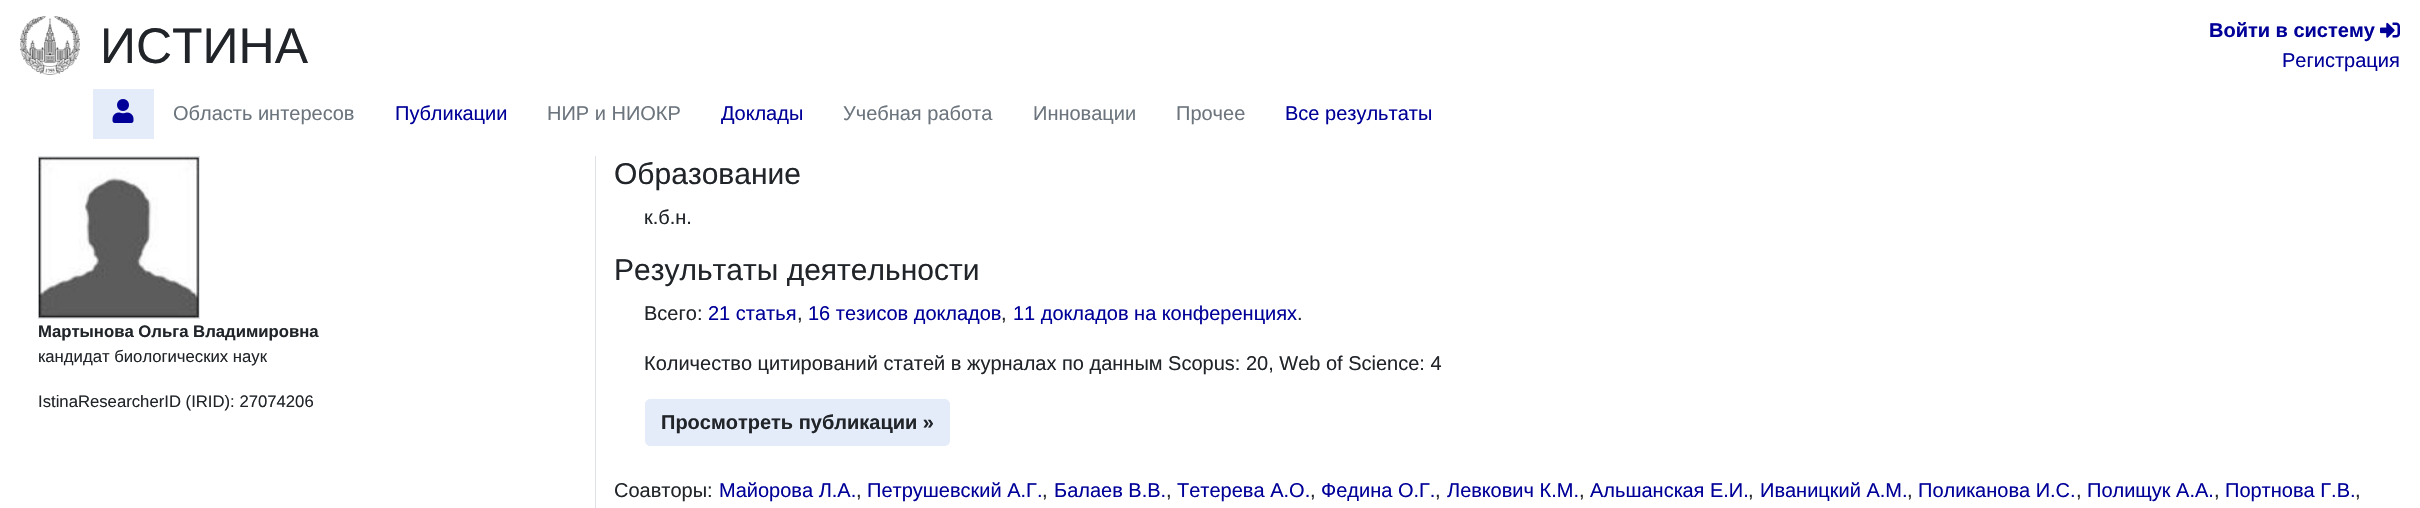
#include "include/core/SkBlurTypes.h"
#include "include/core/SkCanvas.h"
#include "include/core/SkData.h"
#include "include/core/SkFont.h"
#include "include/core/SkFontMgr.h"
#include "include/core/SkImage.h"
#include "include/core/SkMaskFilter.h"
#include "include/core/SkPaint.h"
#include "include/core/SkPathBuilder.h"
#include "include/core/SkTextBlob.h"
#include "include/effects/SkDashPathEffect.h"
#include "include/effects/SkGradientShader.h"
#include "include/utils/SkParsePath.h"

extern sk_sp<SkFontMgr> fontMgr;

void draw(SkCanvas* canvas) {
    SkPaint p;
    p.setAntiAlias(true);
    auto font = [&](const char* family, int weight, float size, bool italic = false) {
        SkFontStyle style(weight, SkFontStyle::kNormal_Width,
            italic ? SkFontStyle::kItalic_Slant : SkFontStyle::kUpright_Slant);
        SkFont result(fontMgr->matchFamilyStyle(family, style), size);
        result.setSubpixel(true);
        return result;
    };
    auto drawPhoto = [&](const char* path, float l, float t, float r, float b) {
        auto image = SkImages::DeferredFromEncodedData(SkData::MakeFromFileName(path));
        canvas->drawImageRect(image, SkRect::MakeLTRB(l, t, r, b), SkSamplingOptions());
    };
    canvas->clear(0xFFFFFFFF);
    drawPhoto("media/1.png", 20, 16, 80, 75);
    auto font1 = font("Liberation Sans", 400, 50);
    p.setColor(0xFF212529);
    canvas->drawString("ИСТИНА", 100, 63, font1, p);
    auto font2 = font("Liberation Sans", 700, 20);
    p.setColor(0xFF000099);
    canvas->drawString("Войти в систему", 2209, 37, font2, p);
    drawPhoto("media/2.png", 2380, 22, 2400, 38);
    auto font3 = font("Liberation Sans", 400, 20);
    canvas->drawString("Регистрация", 2282, 67, font3, p);
    p.setColor(0xFFE5ECF9);
    canvas->drawRect(SkRect::MakeLTRB(93, 89, 154, 139), p);
    drawPhoto("media/3.png", 112, 99, 134, 123);
    p.setColor(0xFF6C757D);
    canvas->drawString("Область интересов", 173, 120, font3, p);
    p.setColor(0xFF000099);
    canvas->drawString("Публикации", 395, 120, font3, p);
    p.setColor(0xFF6C757D);
    canvas->drawString("НИР и НИОКР", 547, 120, font3, p);
    p.setColor(0xFF000099);
    canvas->drawString("Доклады", 721, 120, font3, p);
    p.setColor(0xFF6C757D);
    {
        const struct { const char* s; float x, y; } items[] = {
            {"Учебная работа", 843, 120},
            {"Инновации", 1033, 120},
            {"Прочее", 1176, 120},
        };
        for (auto [s, x, y] : items) {
            canvas->drawString(s, x, y, font3, p);
        }
    }
    p.setColor(0xFF000099);
    canvas->drawString("Все результаты", 1285, 120, font3, p);
    p.setColor(0xFFDEE2E6);
    canvas->drawRect(SkRect::MakeLTRB(595, 156, 596, 508), p);
    p.setStyle(SkPaint::kStroke_Style);
    p.setStrokeWidth(1);
    canvas->drawRect(SkRect::MakeLTRB(38.5f, 156.5f, 199.5f, 318.5f), p);
    drawPhoto("media/4.png", 38, 157, 199, 318);
    auto font4 = font("Liberation Sans", 700, 16.7f);
    p.setStyle(SkPaint::kFill_Style);
    p.setColor(0xFF212529);
    canvas->drawString("Мартынова Ольга Владимировна", 38, 337, font4, p);
    auto font5 = font("Liberation Sans", 400, 16.7f);
    canvas->drawString("кандидат биологических наук", 38, 362, font5, p);
    canvas->drawString("IstinaResearcherID (IRID): 27074206", 38, 407, font5, p);
    auto font6 = font("Liberation Sans", 400, 30);
    canvas->drawString("Образование", 614, 184, font6, p);
    canvas->drawString("к.б.н.", 644, 224, font3, p);
    canvas->drawString("Результаты деятельности", 614, 280, font6, p);
    canvas->drawString("Всего:", 644, 320, font3, p);
    p.setColor(0xFF000099);
    canvas->drawString("21 статья", 708, 320, font3, p);
    p.setColor(0xFF212529);
    canvas->drawString(",", 797, 320, font3, p);
    p.setColor(0xFF000099);
    canvas->drawString("16 тезисов докладов", 808, 320, font3, p);
    p.setColor(0xFF212529);
    canvas->drawString(",", 1001, 320, font3, p);
    p.setColor(0xFF000099);
    canvas->drawString("11 докладов на конференциях", 1013, 320, font3, p);
    p.setColor(0xFF212529);
    canvas->drawString(".", 1297, 320, font3, p);
    canvas->drawString("Количество цитирований статей в журналах по данным Scopus: 20, Web of Science: 4", 644, 370, font3, p);
    p.setColor(0xFFE5ECF9);
    canvas->drawRoundRect(SkRect::MakeLTRB(645.5f, 399.5f, 949.5f, 445.5f), 4.5f, 4.5f, p);
    p.setStyle(SkPaint::kStroke_Style);
    canvas->drawRoundRect(SkRect::MakeLTRB(645.5f, 399.5f, 949.5f, 445.5f), 4.5f, 4.5f, p);
    p.setStyle(SkPaint::kFill_Style);
    p.setColor(0xFF212529);
    canvas->drawString("Просмотреть публикации »", 661, 429, font2, p);
    canvas->drawString("Соавторы:", 614, 497, font3, p);
    p.setColor(0xFF000099);
    canvas->drawString("Майорова Л.А.", 719, 497, font3, p);
    p.setColor(0xFF212529);
    canvas->drawString(",", 856, 497, font3, p);
    p.setColor(0xFF000099);
    canvas->drawString("Петрушевский А.Г.", 867, 497, font3, p);
    p.setColor(0xFF212529);
    canvas->drawString(",", 1042, 497, font3, p);
    p.setColor(0xFF000099);
    canvas->drawString("Балаев В.В.", 1054, 497, font3, p);
    p.setColor(0xFF212529);
    canvas->drawString(",", 1166, 497, font3, p);
    p.setColor(0xFF000099);
    canvas->drawString("Тетерева А.О.", 1177, 497, font3, p);
    p.setColor(0xFF212529);
    canvas->drawString(",", 1310, 497, font3, p);
    p.setColor(0xFF000099);
    canvas->drawString("Федина О.Г.", 1321, 497, font3, p);
    p.setColor(0xFF212529);
    canvas->drawString(",", 1435, 497, font3, p);
    p.setColor(0xFF000099);
    canvas->drawString("Левкович К.М.", 1447, 497, font3, p);
    p.setColor(0xFF212529);
    canvas->drawString(",", 1579, 497, font3, p);
    p.setColor(0xFF000099);
    canvas->drawString("Альшанская Е.И.", 1590, 497, font3, p);
    p.setColor(0xFF212529);
    canvas->drawString(",", 1748, 497, font3, p);
    p.setColor(0xFF000099);
    canvas->drawString("Иваницкий A.M.", 1760, 497, font3, p);
    p.setColor(0xFF212529);
    canvas->drawString(",", 1907, 497, font3, p);
    p.setColor(0xFF000099);
    canvas->drawString("Поликанова И.С.", 1918, 497, font3, p);
    p.setColor(0xFF212529);
    canvas->drawString(",", 2076, 497, font3, p);
    p.setColor(0xFF000099);
    canvas->drawString("Полищук А.А.", 2087, 497, font3, p);
    p.setColor(0xFF212529);
    canvas->drawString(",", 2214, 497, font3, p);
    p.setColor(0xFF000099);
    canvas->drawString("Портнова Г.В.", 2225, 497, font3, p);
    p.setColor(0xFF212529);
    canvas->drawString(",", 2355, 497, font3, p);
}
